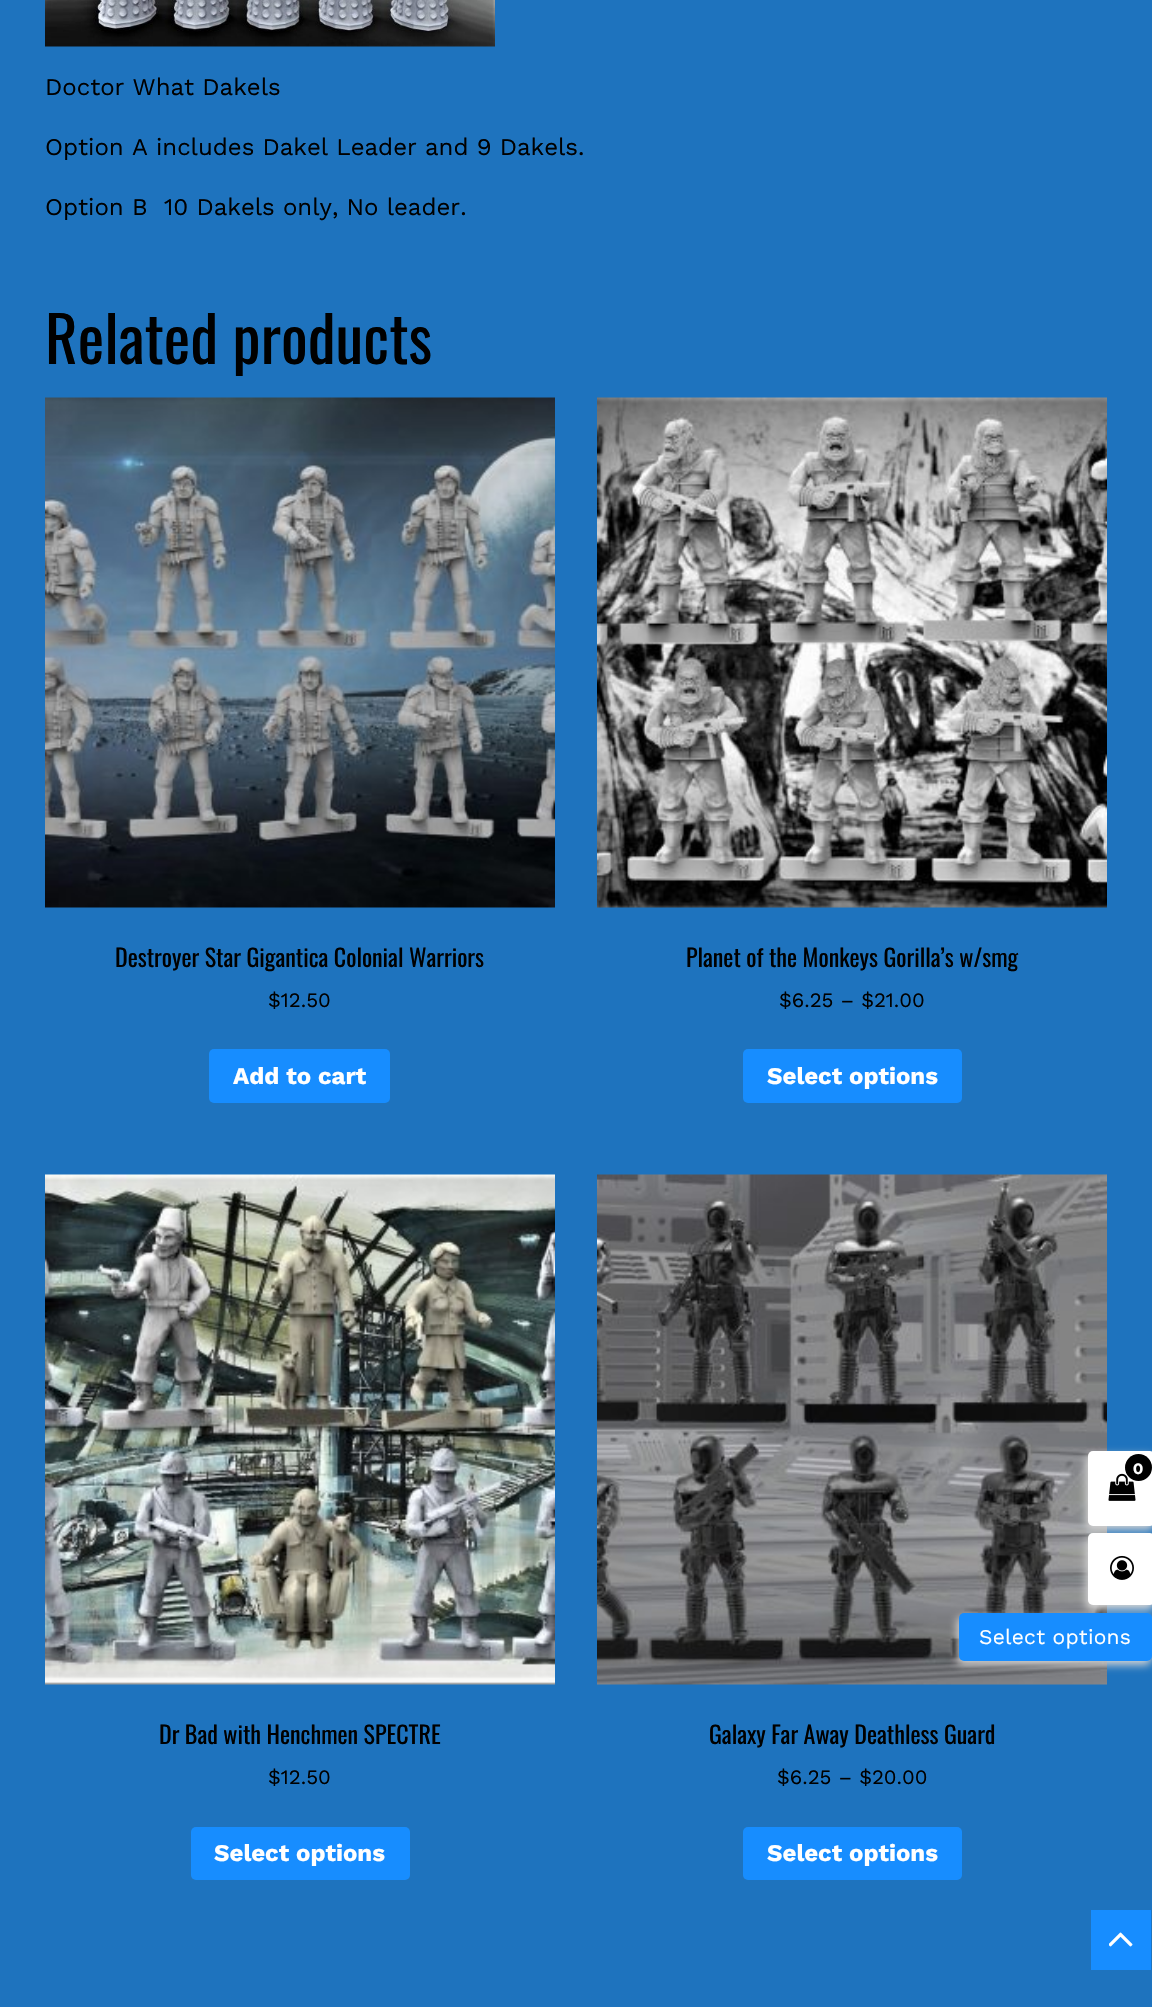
#include "include/core/SkBlurTypes.h"
#include "include/core/SkCanvas.h"
#include "include/core/SkData.h"
#include "include/core/SkFont.h"
#include "include/core/SkFontMgr.h"
#include "include/core/SkImage.h"
#include "include/core/SkMaskFilter.h"
#include "include/core/SkPaint.h"
#include "include/core/SkPathBuilder.h"
#include "include/core/SkTextBlob.h"
#include "include/effects/SkDashPathEffect.h"
#include "include/effects/SkGradientShader.h"
#include "include/utils/SkParsePath.h"

extern sk_sp<SkFontMgr> fontMgr;

void draw(SkCanvas* canvas) {
    SkPaint p;
    p.setAntiAlias(true);
    auto font = [&](const char* family, int weight, float size, bool italic = false) {
        SkFontStyle style(weight, SkFontStyle::kNormal_Width,
            italic ? SkFontStyle::kItalic_Slant : SkFontStyle::kUpright_Slant);
        SkFont result(fontMgr->matchFamilyStyle(family, style), size);
        result.setSubpixel(true);
        return result;
    };
    auto drawTracked = [&](const char* s, float x, float y, const SkFont& font, const SkPaint& ink, float letter, float word) {
        std::vector<SkGlyphID> glyphs(font.countText(s, strlen(s), SkTextEncoding::kUTF8));
        std::vector<float> xs(glyphs.size());
        font.textToGlyphs(s, strlen(s), SkTextEncoding::kUTF8, glyphs);
        font.getXPos(glyphs, xs, x);
        float extra = 0;
        for (size_t i = 0; i < glyphs.size(); i++) {
            xs[i] += extra;
            extra += letter + word * (glyphs[i] == font.unicharToGlyph(' '));
        }
        canvas->drawTextBlob(SkTextBlob::MakeFromPosHGlyphs(glyphs, xs, y, font), 0, 0, ink);
    };
    auto drawPhoto = [&](const char* path, float l, float t, float r, float b) {
        auto image = SkImages::DeferredFromEncodedData(SkData::MakeFromFileName(path));
        canvas->drawImageRect(image, SkRect::MakeLTRB(l, t, r, b), SkSamplingOptions());
    };
    canvas->clear(0xFF1E73BE);
    drawPhoto("media/1.png", 45, 0, 495, 47);
    auto font1 = font("Work Sans", 400, 24);
    p.setColor(0xFF000000);
    {
        const struct { const char* s; float x, y; } items[] = {
            {"Doctor What Dakels", 45, 95},
            {"Option A includes Dakel Leader and 9 Dakels.", 45, 155},
            {"Option B  10 Dakels only, No leader.", 45, 215},
        };
        for (auto [s, x, y] : items) {
            canvas->drawString(s, x, y, font1, p);
        }
    }
    auto font2 = font("Oswald", 400, 63);
    canvas->drawString("Related products", 45, 364, font2, p);
    drawPhoto("media/2.png", 45, 397, 555, 908);
    auto font3 = font("Oswald", 400, 24);
    canvas->drawString("Destroyer Star Gigantica Colonial Warriors", 115, 967, font3, p);
    auto font4 = font("Work Sans", 400, 20.5f);
    canvas->drawString("$12.50", 268, 1007, font4, p);
    p.setColor(0xFF178DFF);
    canvas->drawRoundRect(SkRect::MakeLTRB(209, 1049, 390, 1103), 5, 5, p);
    auto font5 = font("Work Sans", 700, 24);
    p.setColor(0xFFFFFFFF);
    canvas->drawString("Add to cart", 233, 1084, font5, p);
    drawPhoto("media/3.png", 597, 397, 1107, 908);
    p.setColor(0xFF000000);
    canvas->drawString("Planet of the Monkeys Gorilla’s w/smg", 686, 967, font3, p);
    canvas->drawString("$6.25 – $21.00", 779, 1007, font4, p);
    p.setColor(0xFF178DFF);
    canvas->drawRoundRect(SkRect::MakeLTRB(743, 1049, 962, 1103), 5, 5, p);
    p.setColor(0xFFFFFFFF);
    canvas->drawString("Select options", 767, 1084, font5, p);
    drawPhoto("media/4.png", 45, 1174, 555, 1685);
    p.setColor(0xFF000000);
    canvas->drawString("Dr Bad with Henchmen SPECTRE", 159, 1744, font3, p);
    canvas->drawString("$12.50", 268, 1784, font4, p);
    p.setColor(0xFF178DFF);
    canvas->drawRoundRect(SkRect::MakeLTRB(191, 1827, 410, 1880), 5, 5, p);
    p.setColor(0xFFFFFFFF);
    canvas->drawString("Select options", 214, 1861, font5, p);
    drawPhoto("media/5.png", 597, 1174, 1107, 1685);
    p.setColor(0xFF000000);
    canvas->drawString("Galaxy Far Away Deathless Guard", 709, 1744, font3, p);
    canvas->drawString("$6.25 – $20.00", 777, 1784, font4, p);
    p.setColor(0xFF178DFF);
    canvas->drawRoundRect(SkRect::MakeLTRB(743, 1827, 962, 1880), 5, 5, p);
    p.setColor(0xFFFFFFFF);
    canvas->drawString("Select options", 767, 1861, font5, p);
    p.setColor(0xFFD4D4D4);
    p.setMaskFilter(SkMaskFilter::MakeBlur(kNormal_SkBlurStyle, 4));
    canvas->drawRoundRect(SkRect::MakeLTRB(1086, 1455, 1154, 1530), 5, 5, p);
    p.setMaskFilter(nullptr);
    p.setColor(0xFFFFFFFF);
    canvas->drawRoundRect(SkRect::MakeLTRB(1088, 1451, 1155, 1526), 5, 5, p);
    drawPhoto("media/6.png", 1108, 1473, 1136, 1501);
    p.setColor(0xFF000000);
    canvas->drawCircle(1138.5f, 1467.5f, 13.5f, p);
    auto font6 = font("Montserrat", 700, 15);
    p.setColor(0xFFFFFFFF);
    canvas->drawString("0", 1133, 1474, font6, p);
    p.setColor(0xFFD4D4D4);
    p.setMaskFilter(SkMaskFilter::MakeBlur(kNormal_SkBlurStyle, 4));
    canvas->drawRoundRect(SkRect::MakeLTRB(1086, 1538, 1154, 1610), 5, 5, p);
    p.setMaskFilter(nullptr);
    p.setColor(0xFFFFFFFF);
    canvas->drawRoundRect(SkRect::MakeLTRB(1088, 1533, 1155, 1605), 5, 5, p);
    drawPhoto("media/7.png", 1110, 1555, 1134, 1580);
    p.setColor(0xFFD4D4D4);
    p.setMaskFilter(SkMaskFilter::MakeBlur(kNormal_SkBlurStyle, 4));
    canvas->drawRoundRect(SkRect::MakeLTRB(957, 1617, 1151, 1665), 5, 5, p);
    p.setMaskFilter(nullptr);
    p.setColor(0xFF178DFF);
    canvas->drawRoundRect(SkRect::MakeLTRB(959, 1613, 1152, 1661), 5, 5, p);
    auto font7 = font("Work Sans", 400, 21);
    p.setColor(0xFFFFFFFF);
    drawTracked("Select options", 979, 1644, font7, p, 0.25f, 0);
    p.setColor(0xFF178DFF);
    canvas->drawRect(SkRect::MakeLTRB(1091, 1910, 1151, 1970), p);
    drawPhoto("media/8.png", 1109, 1932, 1133, 1947);
}
